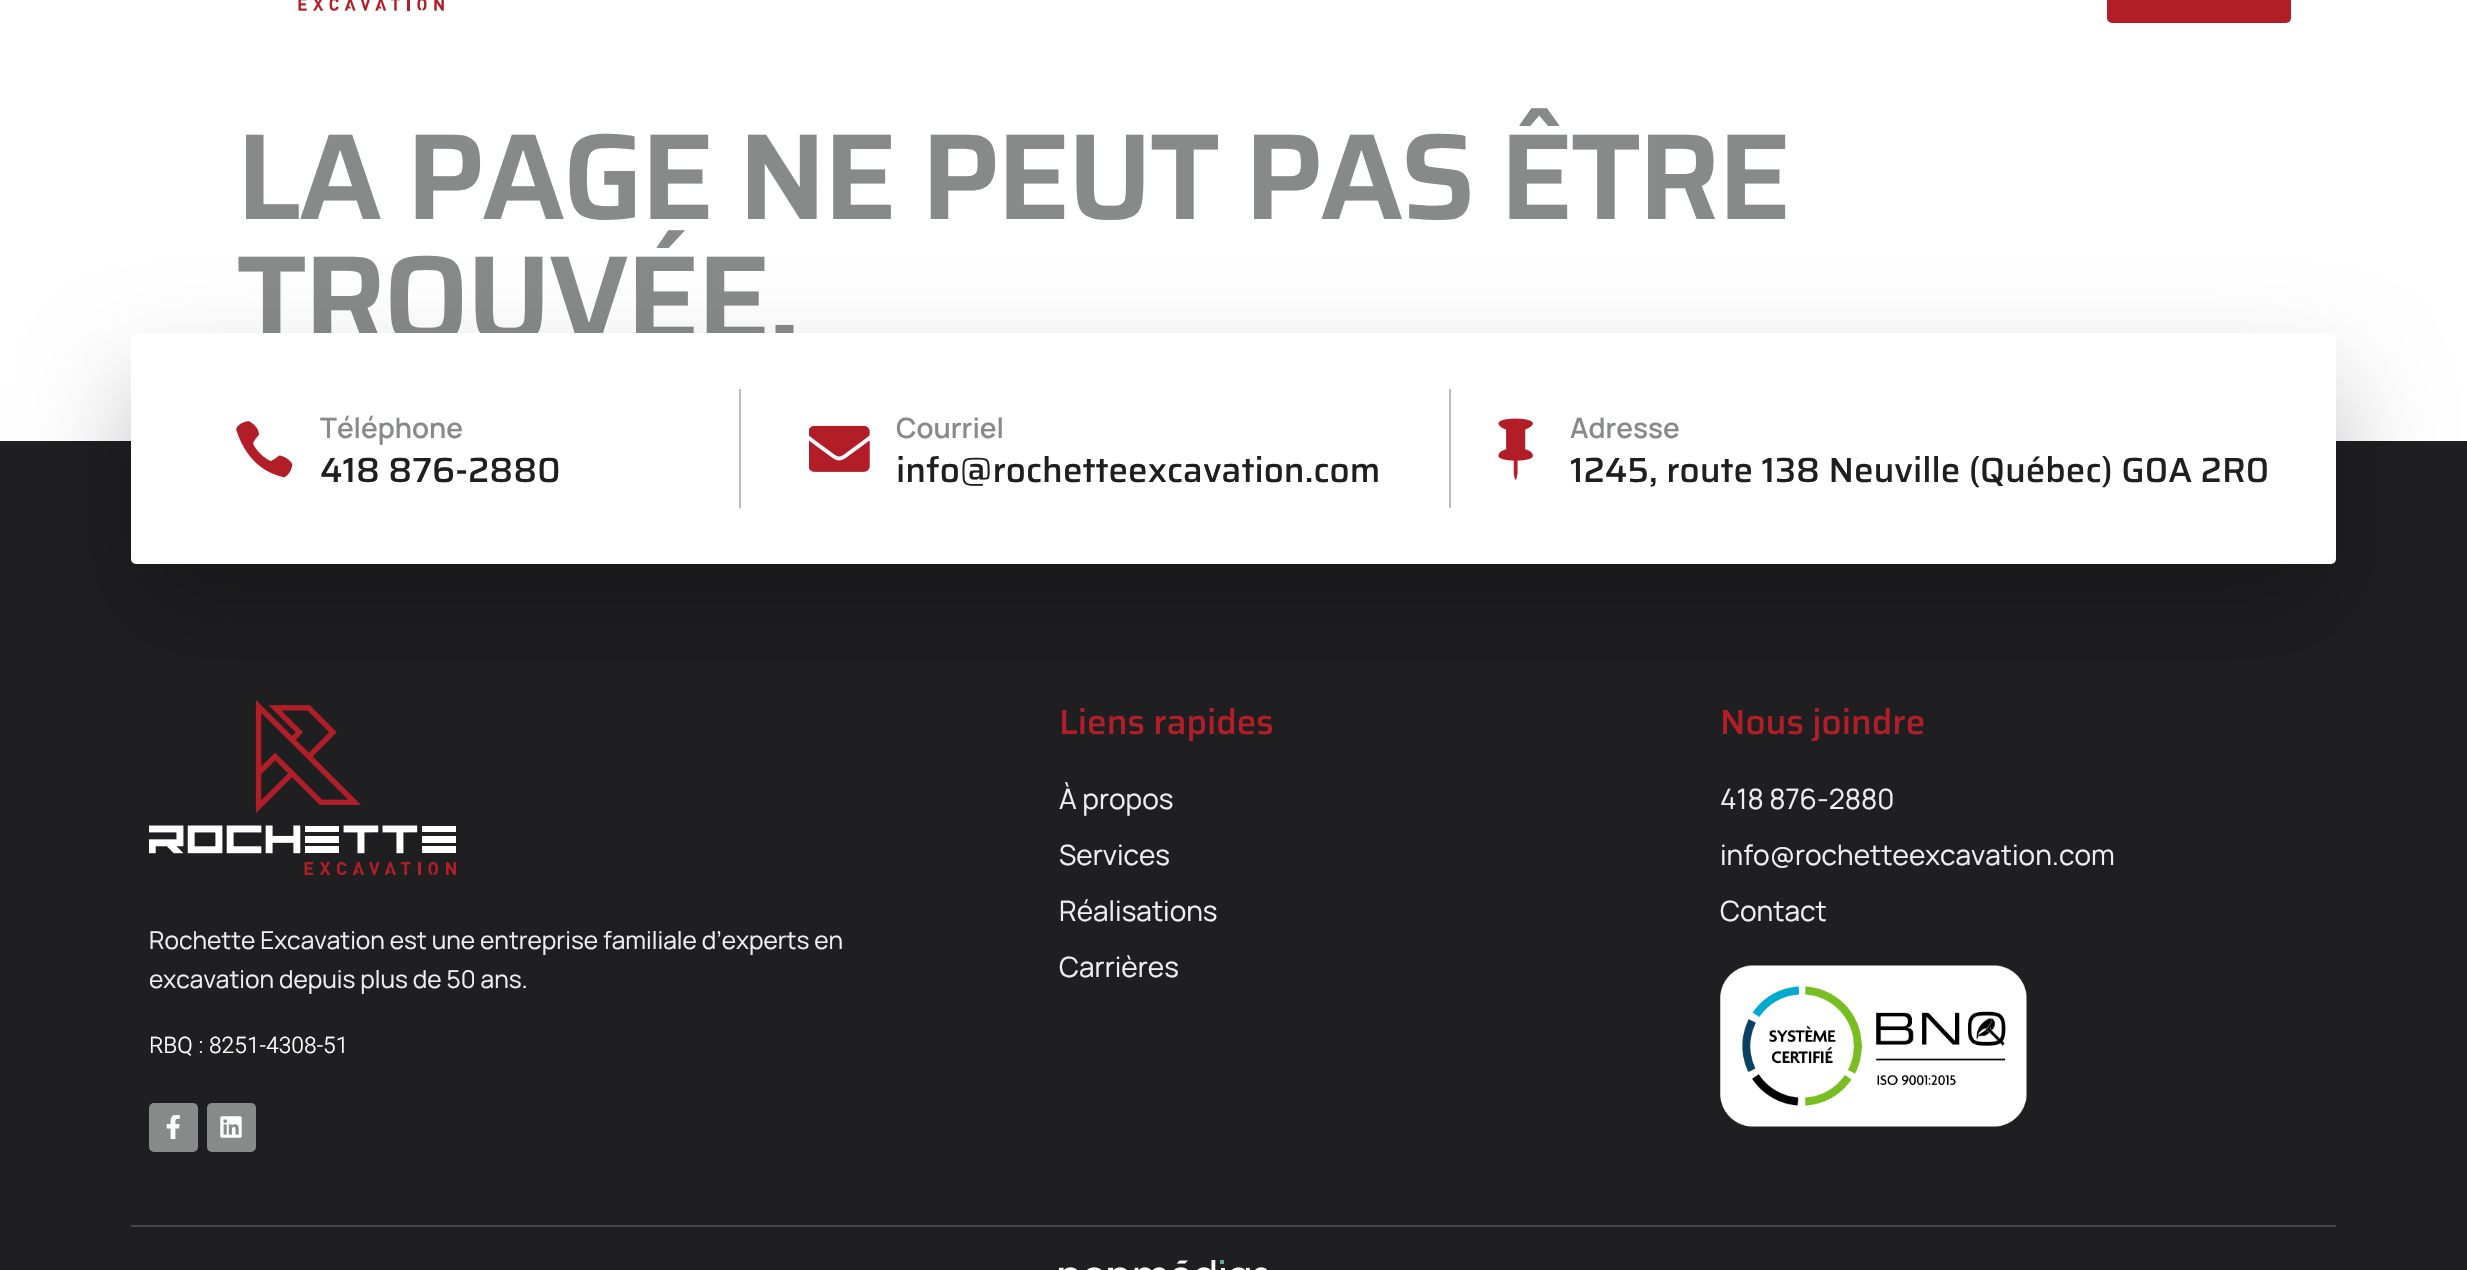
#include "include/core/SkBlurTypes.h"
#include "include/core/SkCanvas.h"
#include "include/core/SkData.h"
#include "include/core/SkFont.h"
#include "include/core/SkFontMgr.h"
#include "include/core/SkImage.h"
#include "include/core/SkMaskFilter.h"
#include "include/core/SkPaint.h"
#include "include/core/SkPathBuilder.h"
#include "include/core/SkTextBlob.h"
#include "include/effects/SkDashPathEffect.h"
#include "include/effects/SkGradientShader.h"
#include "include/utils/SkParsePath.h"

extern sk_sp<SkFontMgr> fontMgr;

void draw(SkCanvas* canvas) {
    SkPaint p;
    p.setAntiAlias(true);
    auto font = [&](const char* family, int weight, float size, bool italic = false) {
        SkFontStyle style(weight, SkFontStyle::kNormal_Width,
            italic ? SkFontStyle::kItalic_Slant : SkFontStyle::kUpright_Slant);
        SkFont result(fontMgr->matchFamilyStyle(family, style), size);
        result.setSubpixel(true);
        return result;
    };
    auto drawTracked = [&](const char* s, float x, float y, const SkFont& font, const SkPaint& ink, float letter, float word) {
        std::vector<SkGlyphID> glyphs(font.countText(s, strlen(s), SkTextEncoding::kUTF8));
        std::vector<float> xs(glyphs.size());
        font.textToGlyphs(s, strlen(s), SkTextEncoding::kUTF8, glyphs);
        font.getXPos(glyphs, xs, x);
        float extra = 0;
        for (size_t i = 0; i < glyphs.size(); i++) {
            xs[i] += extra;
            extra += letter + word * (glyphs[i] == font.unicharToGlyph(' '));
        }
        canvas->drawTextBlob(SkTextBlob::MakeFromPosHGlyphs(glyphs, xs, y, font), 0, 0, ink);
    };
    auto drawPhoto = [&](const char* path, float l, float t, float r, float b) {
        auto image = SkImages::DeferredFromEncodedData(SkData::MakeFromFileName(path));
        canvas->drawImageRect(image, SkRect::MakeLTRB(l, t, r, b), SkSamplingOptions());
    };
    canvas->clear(0xFFFFFFFF);
    drawPhoto("media/1.png", 298, 0, 444, 11);
    p.setColor(0xFFB21E28);
    canvas->drawRoundRect(SkRect::MakeLTRB(2107, -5, 2291, 23), 5, 5, p);
    auto font1 = font("Saira", 600, 122.5f);
    p.setColor(0xFF888989);
    drawTracked("LA PAGE NE PEUT PAS ÊTRE", 236, 219, font1, p, -3.5f, 0);
    drawTracked("TROUVÉE.", 236, 341, font1, p, -3.5f, 0);
    p.setColor(0xFF1F1F21);
    canvas->drawRect(SkRect::MakeLTRB(0, 441, 2467, 1270), p);
    drawPhoto("media/6.png", 149, 700, 456, 875);
    p.setColor(0x40000000);
    p.setMaskFilter(SkMaskFilter::MakeBlur(kNormal_SkBlurStyle, 52.5f));
    canvas->drawRoundRect(SkRect::MakeLTRB(131, 385, 2336, 616), 5, 5, p);
    p.setMaskFilter(nullptr);
    p.setColor(0xFFFFFFFF);
    canvas->drawRoundRect(SkRect::MakeLTRB(131, 333, 2336, 564), 5, 5, p);
    drawPhoto("media/2.png", 236, 421, 293, 478);
    auto font2 = font("Manrope", 600, 28);
    p.setColor(0xFF888989);
    canvas->drawString("Téléphone", 320, 438, font2, p);
    auto font3 = font("Saira", 500, 35);
    p.setColor(0xFF1F1F21);
    canvas->drawString("418 876-2880", 320, 482, font3, p);
    p.setColor(0xFFBDBDBD);
    canvas->drawRect(SkRect::MakeLTRB(1449, 389, 1451, 508), p);
    canvas->drawRect(SkRect::MakeLTRB(739, 389, 741, 508), p);
    drawPhoto("media/3.png", 809, 425, 870, 472);
    p.setColor(0xFF888989);
    canvas->drawString("Courriel", 896, 438, font2, p);
    p.setColor(0xFF1F1F21);
    canvas->drawString("info@rochetteexcavation.com", 896, 482, font3, p);
    drawPhoto("media/4.png", 1498, 418, 1533, 480);
    p.setColor(0xFF888989);
    canvas->drawString("Adresse", 1570, 438, font2, p);
    p.setColor(0xFF1F1F21);
    canvas->drawString("1245, route 138 Neuville (Québec) G0A 2R0", 1570, 482, font3, p);
    p.setColor(0xFFB21E28);
    canvas->drawString("Liens rapides", 1059, 734, font3, p);
    auto font4 = font("Manrope", 400, 28);
    p.setColor(0xFFEFEFEF);
    {
        const struct { const char* s; float x, y; } items[] = {
            {"À propos", 1059, 809},
            {"Services", 1059, 865},
            {"Réalisations", 1059, 921},
            {"Carrières", 1059, 977},
        };
        for (auto [s, x, y] : items) {
            canvas->drawString(s, x, y, font4, p);
        }
    }
    p.setColor(0xFFB21E28);
    canvas->drawString("Nous joindre", 1720, 734, font3, p);
    p.setColor(0xFFEFEFEF);
    {
        const struct { const char* s; float x, y; } items[] = {
            {"418 876-2880", 1720, 809},
            {"info@rochetteexcavation.com", 1720, 865},
            {"Contact", 1720, 921},
        };
        for (auto [s, x, y] : items) {
            canvas->drawString(s, x, y, font4, p);
        }
    }
    drawPhoto("media/5.png", 1720, 965, 2027, 1127);
    auto font5 = font("Manrope", 400, 24.5f);
    canvas->drawString("Rochette Excavation est une entreprise familiale d’experts en", 149, 949, font5, p);
    canvas->drawString("excavation depuis plus de 50 ans.", 149, 988, font5, p);
    auto font6 = font("Heebo", 300, 22.75f);
    p.setColor(0xFFFFFFFF);
    canvas->drawString("RBQ : 8251-4308-51", 149, 1053, font6, p);
    p.setColor(0xFF888989);
    canvas->drawRoundRect(SkRect::MakeLTRB(149, 1103, 198, 1152), 5, 5, p);
    drawPhoto("media/7.png", 166, 1115, 180, 1139);
    canvas->drawRoundRect(SkRect::MakeLTRB(207, 1103, 256, 1152), 5, 5, p);
    drawPhoto("media/8.png", 220, 1116, 242, 1138);
    p.setColor(0xFF474749);
    canvas->drawRect(SkRect::MakeLTRB(131, 1225, 2336, 1227), p);
    drawPhoto("media/9.png", 1059, 1260, 1267, 1270);
}
